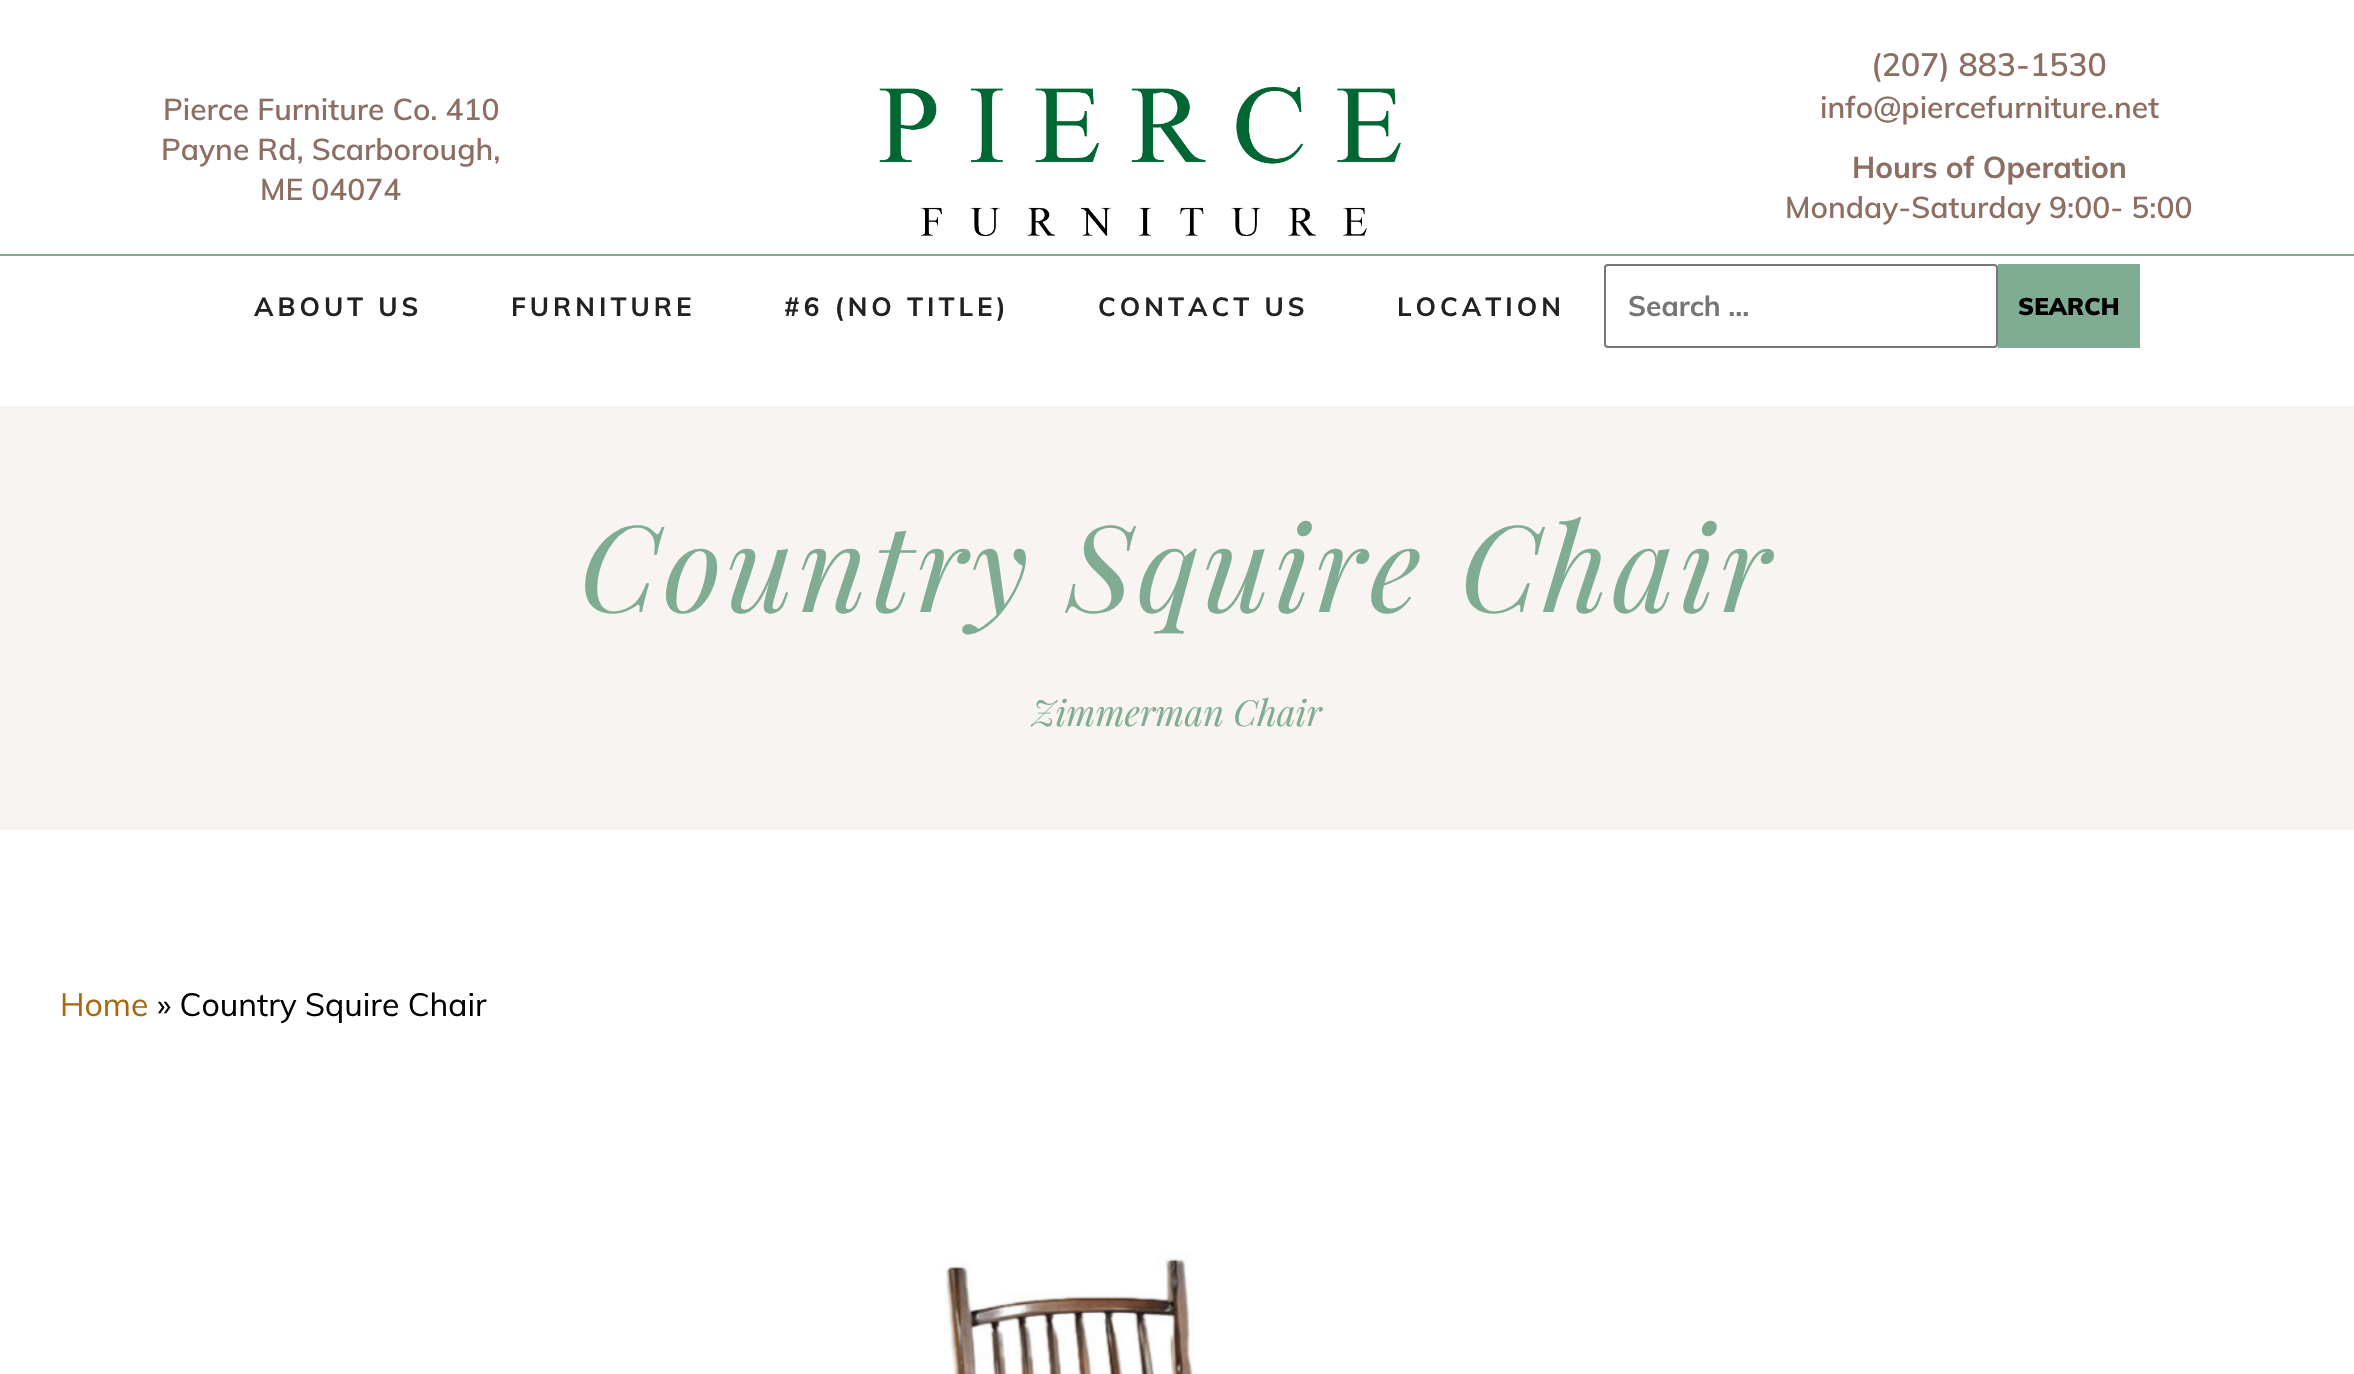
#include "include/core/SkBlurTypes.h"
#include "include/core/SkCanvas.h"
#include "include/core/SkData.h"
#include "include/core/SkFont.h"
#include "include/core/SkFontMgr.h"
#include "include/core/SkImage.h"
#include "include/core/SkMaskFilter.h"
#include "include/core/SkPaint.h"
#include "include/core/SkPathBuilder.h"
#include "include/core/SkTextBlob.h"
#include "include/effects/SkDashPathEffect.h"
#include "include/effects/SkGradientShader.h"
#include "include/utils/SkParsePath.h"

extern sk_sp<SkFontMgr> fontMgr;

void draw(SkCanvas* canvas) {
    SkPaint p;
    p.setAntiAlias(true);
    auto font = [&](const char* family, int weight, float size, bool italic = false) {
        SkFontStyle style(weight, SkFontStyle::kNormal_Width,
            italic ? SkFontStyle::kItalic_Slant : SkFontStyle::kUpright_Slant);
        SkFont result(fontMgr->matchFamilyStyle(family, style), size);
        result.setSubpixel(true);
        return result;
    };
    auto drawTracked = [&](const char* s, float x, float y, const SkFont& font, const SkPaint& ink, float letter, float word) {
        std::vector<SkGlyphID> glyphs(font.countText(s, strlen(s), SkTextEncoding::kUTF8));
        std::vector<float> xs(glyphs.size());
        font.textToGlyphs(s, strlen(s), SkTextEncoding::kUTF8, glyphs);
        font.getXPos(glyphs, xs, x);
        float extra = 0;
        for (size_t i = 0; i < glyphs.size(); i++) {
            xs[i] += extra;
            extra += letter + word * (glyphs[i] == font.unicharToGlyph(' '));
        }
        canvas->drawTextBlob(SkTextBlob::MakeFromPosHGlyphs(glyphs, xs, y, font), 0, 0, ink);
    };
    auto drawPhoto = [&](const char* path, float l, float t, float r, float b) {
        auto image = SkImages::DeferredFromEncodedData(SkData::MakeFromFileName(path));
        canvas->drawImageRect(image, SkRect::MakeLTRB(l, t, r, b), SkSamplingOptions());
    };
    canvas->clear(0xFFFFFFFF);
    auto font1 = font("Muli", 600, 30);
    p.setColor(0xFF8D6E63);
    {
        const struct { const char* s; float x, y; } items[] = {
            {"Pierce Furniture Co. 410", 163, 120},
            {"Payne Rd, Scarborough,", 161, 160},
            {"ME 04074", 260, 200},
        };
        for (auto [s, x, y] : items) {
            canvas->drawString(s, x, y, font1, p);
        }
    }
    drawPhoto("media/1.png", 879, 86, 1401, 236);
    auto font2 = font("Muli", 600, 32);
    canvas->drawString("(207) 883-1530", 1871, 76, font2, p);
    canvas->drawString("info@piercefurniture.net", 1820, 118, font1, p);
    auto font3 = font("Muli", 700, 30);
    canvas->drawString("Hours of Operation", 1852, 178, font3, p);
    canvas->drawString("Monday-Saturday 9:00- 5:00", 1785, 218, font1, p);
    p.setColor(0xFF7FAB93);
    canvas->drawRect(SkRect::MakeLTRB(0, 254, 2354, 256), p);
    auto font4 = font("Muli", 700, 26);
    p.setColor(0xFF222222);
    {
        const struct { const char* s; float x, y; } items[] = {
            {"ABOUT US", 254, 316},
            {"FURNITURE", 511, 316},
            {"#6 (NO TITLE)", 784, 316},
            {"CONTACT US", 1098, 316},
            {"LOCATION", 1397, 316},
        };
        for (auto [s, x, y] : items) {
            drawTracked(s, x, y, font4, p, 4, 0);
        }
    }
    p.setStyle(SkPaint::kStroke_Style);
    p.setStrokeWidth(2);
    p.setColor(0xFF767676);
    canvas->drawRoundRect(SkRect::MakeLTRB(1605, 265, 1997, 347), 3, 3, p);
    auto font5 = font("Muli", 700, 28);
    p.setStyle(SkPaint::kFill_Style);
    p.setColor(0xFF757575);
    canvas->drawString("Search …", 1628, 316, font5, p);
    p.setColor(0xFF80AC93);
    canvas->drawRect(SkRect::MakeLTRB(1998, 264, 2140, 348), p);
    auto font6 = font("Muli", 900, 24);
    p.setColor(0xFF000000);
    canvas->drawString("SEARCH", 2018, 315, font6, p);
    p.setColor(0xFFF7F4F1);
    canvas->drawRect(SkRect::MakeLTRB(0, 406, 2354, 830), p);
    auto font7 = font("Playfair Display", 400, 120, true);
    p.setColor(0xFF80AC93);
    drawTracked("Country Squire Chair", 579, 612, font7, p, 4, 0);
    auto font8 = font("Playfair Display", 400, 36, true);
    canvas->drawString("Zimmerman Chair", 1032, 726, font8, p);
    auto font9 = font("Muli", 400, 32);
    p.setColor(0xFFA6690F);
    canvas->drawString("Home", 60, 1016, font9, p);
    p.setColor(0xFF000000);
    canvas->drawString("» Country Squire Chair", 157, 1016, font9, p);
    drawPhoto("media/2.png", 943, 1253, 1196, 1374);
}
